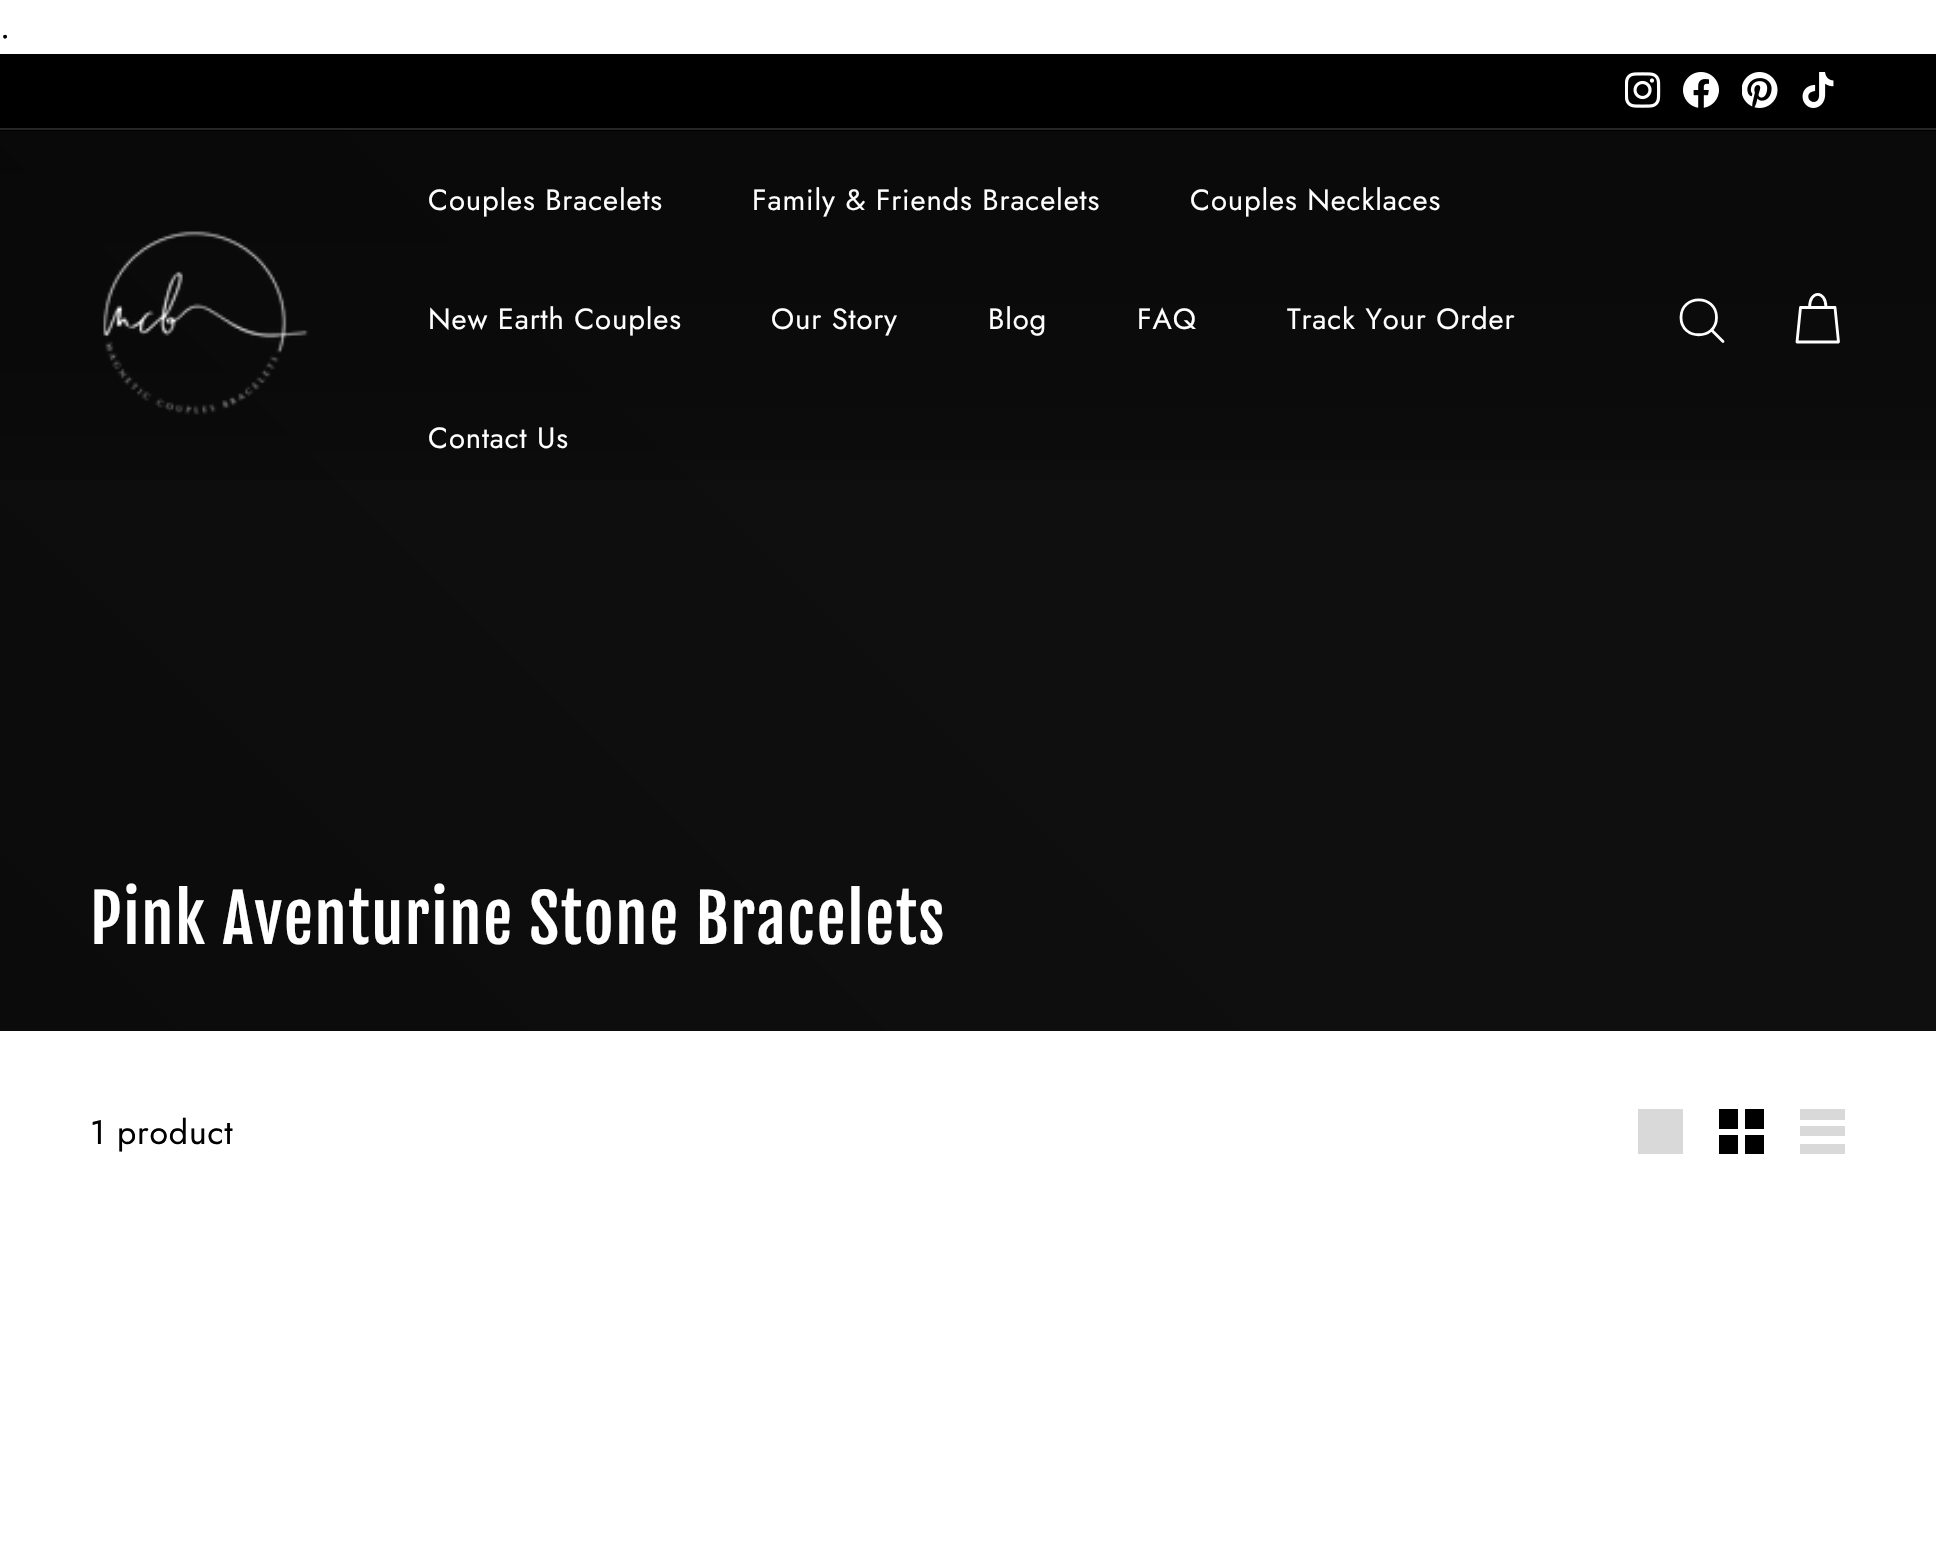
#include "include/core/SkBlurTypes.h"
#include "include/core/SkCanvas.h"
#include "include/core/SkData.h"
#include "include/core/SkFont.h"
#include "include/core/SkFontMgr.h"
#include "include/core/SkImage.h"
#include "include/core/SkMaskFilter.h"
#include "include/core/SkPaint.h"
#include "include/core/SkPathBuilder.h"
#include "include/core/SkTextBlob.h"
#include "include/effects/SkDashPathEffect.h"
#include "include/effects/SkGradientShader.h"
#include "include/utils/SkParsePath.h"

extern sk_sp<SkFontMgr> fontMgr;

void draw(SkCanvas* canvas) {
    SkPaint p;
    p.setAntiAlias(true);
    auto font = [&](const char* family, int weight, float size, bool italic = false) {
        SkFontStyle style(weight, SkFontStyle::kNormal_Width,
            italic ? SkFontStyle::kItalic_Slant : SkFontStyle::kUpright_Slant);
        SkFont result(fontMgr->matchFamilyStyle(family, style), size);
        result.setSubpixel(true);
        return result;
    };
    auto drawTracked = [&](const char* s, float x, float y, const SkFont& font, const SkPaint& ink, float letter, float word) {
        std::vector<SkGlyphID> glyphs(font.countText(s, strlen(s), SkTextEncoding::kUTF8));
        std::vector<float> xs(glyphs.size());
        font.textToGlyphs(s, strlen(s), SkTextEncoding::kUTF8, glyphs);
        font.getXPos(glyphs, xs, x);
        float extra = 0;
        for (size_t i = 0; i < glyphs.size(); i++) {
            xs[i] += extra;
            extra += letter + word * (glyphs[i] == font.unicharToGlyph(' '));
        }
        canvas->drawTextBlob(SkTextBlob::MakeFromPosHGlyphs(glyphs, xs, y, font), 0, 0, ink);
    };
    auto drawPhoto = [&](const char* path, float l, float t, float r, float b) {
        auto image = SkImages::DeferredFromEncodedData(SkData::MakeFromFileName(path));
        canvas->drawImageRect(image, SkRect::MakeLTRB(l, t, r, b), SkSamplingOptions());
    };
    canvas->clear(0xFFFFFFFF);
    auto font1 = font("Jost", 400, 33.75f);
    p.setColor(0xFF000000);
    drawTracked(".", 0, 38, font1, p, 0.85f, 0);
    canvas->drawRect(SkRect::MakeLTRB(0, 54, 1936, 131), p);
    drawPhoto("media/1.png", 1625, 72, 1661, 108);
    drawPhoto("media/2.png", 1683, 72, 1719, 108);
    drawPhoto("media/3.png", 1742, 72, 1778, 108);
    drawPhoto("media/4.png", 1802, 72, 1834, 108);
    p.setColor(0xFF262626);
    canvas->drawRect(SkRect::MakeLTRB(0, 128, 1936, 130), p);
    {
        const SkColor colors[] = {0xFF0B0B0B, 0xFF0F0F0F};
        const float stops[] = {0, 0.5f};
        const SkPoint ends[] = {{259, 1290}, {1678, -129}};
        p.setShader(SkGradientShader::MakeLinear(ends, colors, stops, 2, SkTileMode::kClamp));
        p.setAlpha(255);
    }
    canvas->drawRect(SkRect::MakeLTRB(0, 131, 1936, 1031), p);
    {
        const SkColor colors[] = {0x66000000, 0x4D000000, 0x00000000};
        const float stops[] = {0, 0.5f, 1};
        const SkPoint ends[] = {{969, 130}, {969, 623}};
        p.setShader(SkGradientShader::MakeLinear(ends, colors, stops, 3, SkTileMode::kClamp));
        p.setAlpha(255);
    }
    canvas->drawRect(SkRect::MakeLTRB(0, 131, 1936, 480), p);
    drawPhoto("media/5.png", 103, 231, 309, 415);
    auto font2 = font("Jost", 400, 29.25f);
    p.setShader(nullptr);
    p.setColor(0xFFFFFFFF);
    {
        const struct { const char* s; float x, y; } items[] = {
            {"Couples Bracelets", 428, 210},
            {"Family & Friends Bracelets", 752, 210},
            {"Couples Necklaces", 1190, 210},
            {"New Earth Couples", 428, 329},
            {"Our Story", 771, 329},
            {"Blog", 988, 329},
            {"FAQ", 1137, 329},
            {"Track Your Order", 1287, 329},
            {"Contact Us", 428, 448},
        };
        for (auto [s, x, y] : items) {
            drawTracked(s, x, y, font2, p, 0.85f, 0);
        }
    }
    p.setStyle(SkPaint::kStroke_Style);
    p.setStrokeWidth(2.8f);
    p.setStrokeCap(SkPaint::kRound_Cap);
    p.setStrokeJoin(SkPaint::kRound_Join);
    canvas->drawPath(SkPathBuilder().moveTo(1716.5f, 317.5f).cubicTo(1716.5f, 340.5f, 1681, 340.5f, 1681, 317.5f).cubicTo(1681, 294, 1716.5f, 294, 1716.5f, 317.5f).close().moveTo(1723, 341.5f).lineTo(1711.5f, 330).detach(), p);
    canvas->drawPath(SkPathBuilder().moveTo(1809.5f, 307.5f).cubicTo(1809.5f, 290, 1826, 290, 1826, 307.5f).moveTo(1800.5f, 307.5f).lineTo(1835, 307.5f).lineTo(1838.5f, 342).lineTo(1797, 342).close().detach(), p);
    auto font3 = font("Fjalla One", 400, 65.25f);
    p.setStyle(SkPaint::kFill_Style);
    drawTracked("Pink Aventurine Stone Bracelets", 90, 944, font3, p, 1.6f, 0);
    p.setColor(0xFF000000);
    drawTracked("1 product", 90, 1144, font1, p, 0.85f, 0);
    p.setColor(0xFFD9D9D9);
    canvas->drawRect(SkRect::MakeLTRB(1638, 1109, 1683, 1154), p);
    p.setColor(0xFF000000);
    canvas->drawPath(SkPathBuilder().moveTo(1719, 1109).lineTo(1738, 1109).lineTo(1738, 1129).lineTo(1719, 1129).close().moveTo(1745, 1109).lineTo(1764, 1109).lineTo(1764, 1129).lineTo(1745, 1129).close().moveTo(1719, 1135).lineTo(1738, 1135).lineTo(1738, 1154).lineTo(1719, 1154).close().moveTo(1745, 1135).lineTo(1764, 1135).lineTo(1764, 1154).lineTo(1745, 1154).close().detach(), p);
    p.setColor(0xFFD9D9D9);
    canvas->drawPath(SkPathBuilder().moveTo(1800, 1109).lineTo(1845, 1109).lineTo(1845, 1120).lineTo(1800, 1120).close().moveTo(1800, 1126).lineTo(1845, 1126).lineTo(1845, 1136).lineTo(1800, 1136).close().moveTo(1800, 1144).lineTo(1845, 1144).lineTo(1845, 1154).lineTo(1800, 1154).close().detach(), p);
}
